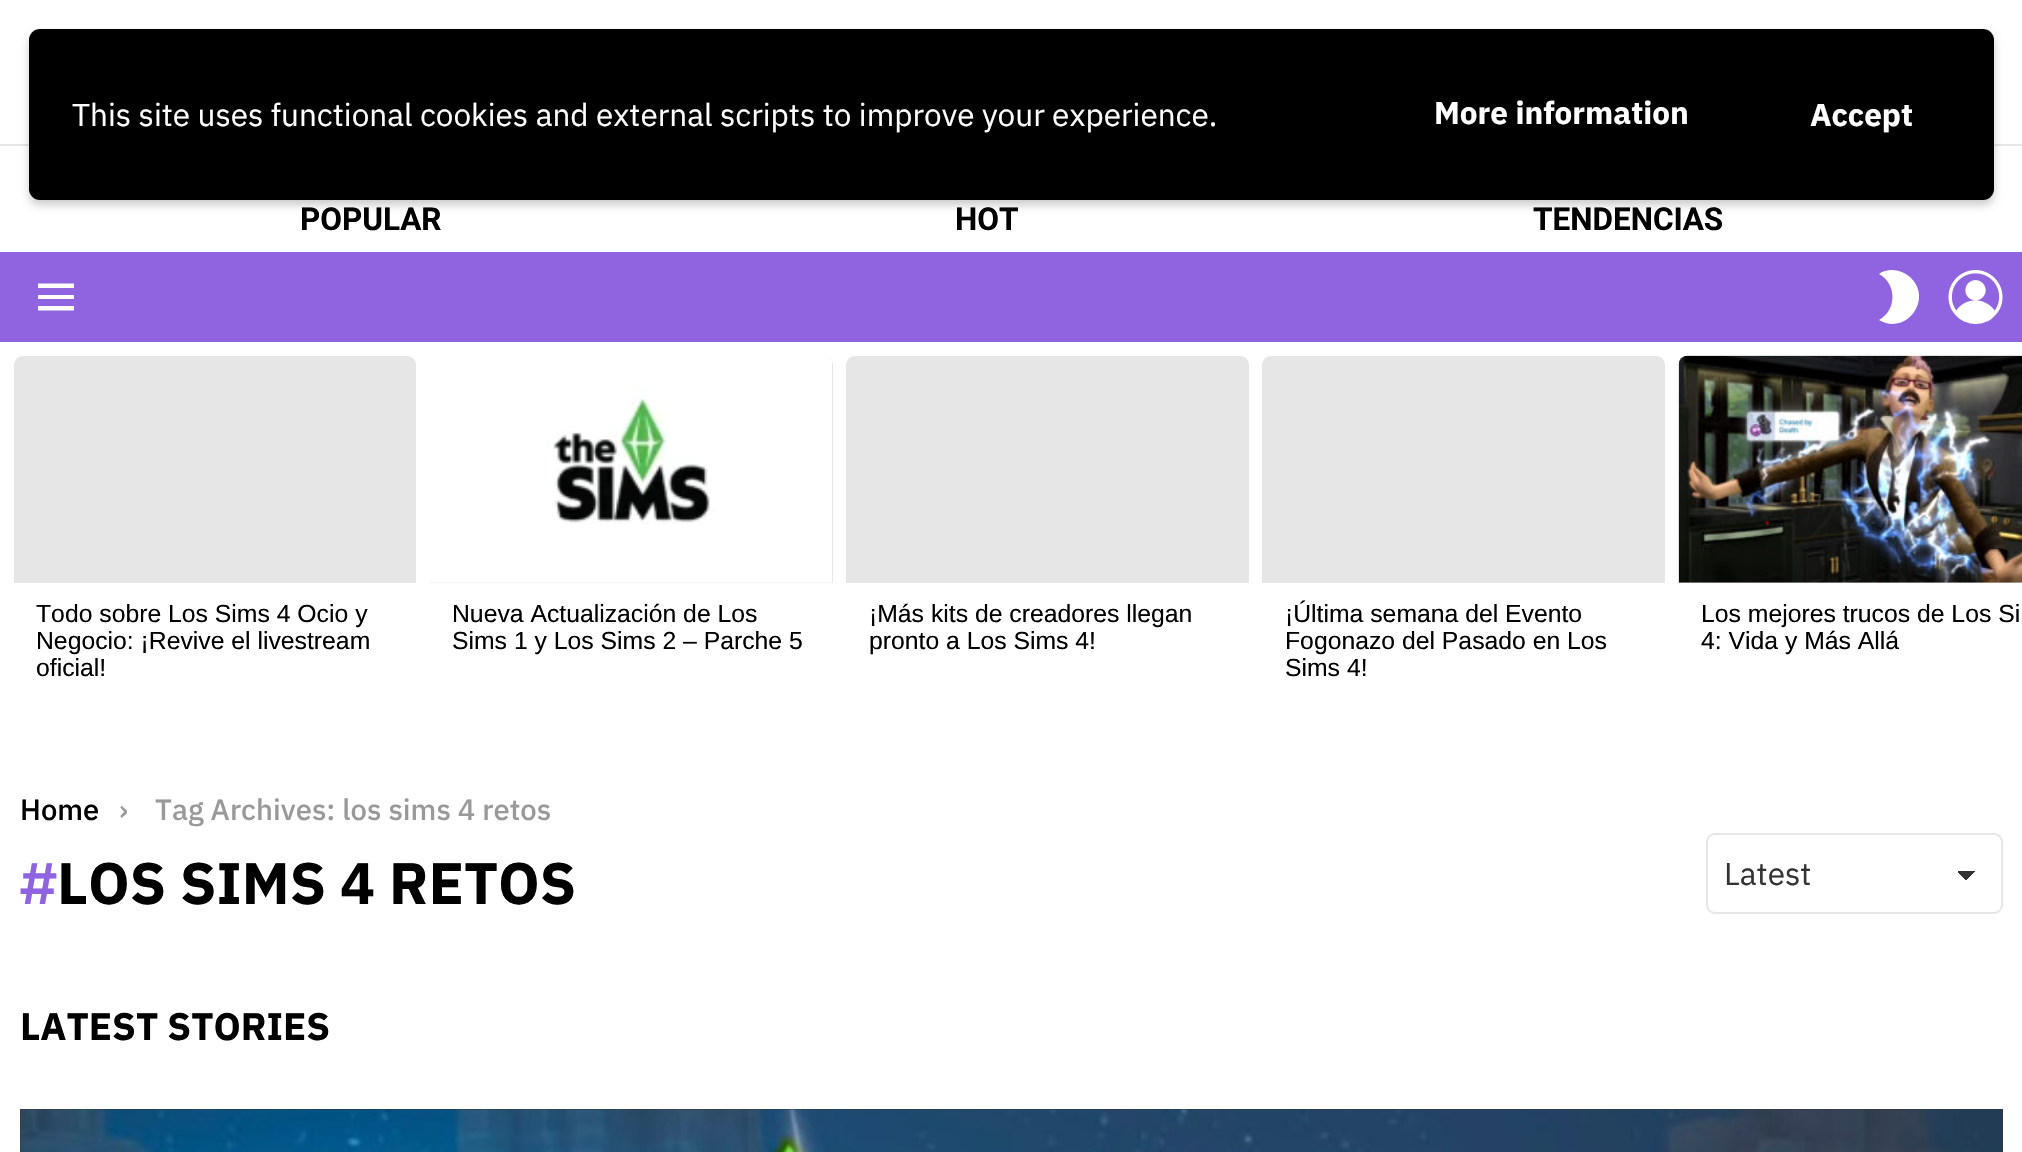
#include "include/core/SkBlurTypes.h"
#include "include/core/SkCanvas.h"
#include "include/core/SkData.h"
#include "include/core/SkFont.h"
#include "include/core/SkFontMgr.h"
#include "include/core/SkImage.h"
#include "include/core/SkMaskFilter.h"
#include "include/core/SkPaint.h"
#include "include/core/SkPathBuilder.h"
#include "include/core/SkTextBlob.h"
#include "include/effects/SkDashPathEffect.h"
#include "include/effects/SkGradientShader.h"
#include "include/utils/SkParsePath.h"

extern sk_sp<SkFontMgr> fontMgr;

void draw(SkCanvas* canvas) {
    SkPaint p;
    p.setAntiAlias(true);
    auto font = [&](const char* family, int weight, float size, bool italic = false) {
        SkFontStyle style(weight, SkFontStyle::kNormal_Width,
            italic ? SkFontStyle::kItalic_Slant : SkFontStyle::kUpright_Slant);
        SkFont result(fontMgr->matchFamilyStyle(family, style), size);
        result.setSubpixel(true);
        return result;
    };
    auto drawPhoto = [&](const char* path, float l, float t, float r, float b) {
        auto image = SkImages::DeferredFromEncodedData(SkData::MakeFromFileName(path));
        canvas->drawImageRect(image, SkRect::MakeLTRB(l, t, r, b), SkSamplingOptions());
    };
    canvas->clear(0xFFFFFFFF);
    p.setColor(0xFFE6E6E6);
    canvas->drawRect(SkRect::MakeLTRB(0, 144, 2022, 146), p);
    p.setColor(0x33000000);
    p.setMaskFilter(SkMaskFilter::MakeBlur(kNormal_SkBlurStyle, 4.5f));
    canvas->drawRoundRect(SkRect::MakeLTRB(29, 34, 1994, 205), 11, 11, p);
    p.setMaskFilter(nullptr);
    p.setColor(0xFF000000);
    canvas->drawRoundRect(SkRect::MakeLTRB(29, 29, 1994, 200), 11, 11, p);
    auto font1 = font("IBM Plex Sans", 400, 31.5f);
    p.setColor(0xFFFFFFFF);
    canvas->drawString("This site uses functional cookies and external scripts to improve your experience.", 72, 126, font1, p);
    auto font2 = font("IBM Plex Sans", 700, 31.5f);
    canvas->drawString("More information", 1434, 124, font2, p);
    canvas->drawString("Accept", 1810, 126, font2, p);
    auto font3 = font("Roboto", 700, 31.5f);
    p.setColor(0xFF000000);
    {
        const struct { const char* s; float x, y; } items[] = {
            {"POPULAR", 300, 230},
            {"HOT", 955, 230},
            {"TENDENCIAS", 1533, 230},
        };
        for (auto [s, x, y] : items) {
            canvas->drawString(s, x, y, font3, p);
        }
    }
    p.setColor(0xFF9064E0);
    canvas->drawRect(SkRect::MakeLTRB(0, 252, 2022, 342), p);
    p.setColor(0xFFFFFFFF);
    canvas->drawPath(SkPathBuilder().moveTo(38, 283.5f).lineTo(74, 283.5f).lineTo(74, 288).lineTo(38, 288).close().moveTo(38, 295).lineTo(74, 295).lineTo(74, 299).lineTo(38, 299).close().moveTo(38, 306).lineTo(74, 306).lineTo(74, 310.5f).lineTo(38, 310.5f).close().detach(), p);
    canvas->drawPath(SkPathBuilder().moveTo(1892, 270).cubicTo(1887, 270, 1883, 271, 1879, 274).cubicTo(1897, 284, 1897, 310, 1879, 320).cubicTo(1906, 336, 1934, 299, 1910, 277).cubicTo(1905, 273, 1899, 270, 1892, 270).close().detach(), p);
    drawPhoto("media/1.png", 1948, 270, 2003, 324);
    p.setColor(0xFFE6E6E6);
    canvas->drawPath(SkPathBuilder().moveTo(23, 356).lineTo(407, 356).cubicTo(412, 356, 416, 360, 416, 365).lineTo(416, 583).lineTo(14, 583).lineTo(14, 365).cubicTo(14, 360, 18, 356, 23, 356).close().detach(), p);
    auto font4 = font("Liberation Sans", 400, 24.75f);
    p.setColor(0xFF000000);
    {
        const struct { const char* s; float x, y; } items[] = {
            {"Todo sobre Los Sims 4 Ocio y", 36, 622},
            {"Negocio: ¡Revive el livestream", 36, 649},
            {"oficial!", 36, 676},
        };
        for (auto [s, x, y] : items) {
            canvas->drawString(s, x, y, font4, p);
        }
    }
    p.setColor(0xFFE6E6E6);
    canvas->drawPath(SkPathBuilder().moveTo(439, 356).lineTo(824, 356).cubicTo(829, 356, 833, 360, 833, 365).lineTo(833, 583).lineTo(430, 583).lineTo(430, 365).cubicTo(430, 360, 434, 356, 439, 356).close().detach(), p);
    drawPhoto("media/2.png", 430, 356, 832, 583);
    p.setColor(0xFF000000);
    canvas->drawString("Nueva Actualización de Los", 452, 622, font4, p);
    canvas->drawString("Sims 1 y Los Sims 2 – Parche 5", 452, 649, font4, p);
    p.setColor(0xFFE6E6E6);
    canvas->drawPath(SkPathBuilder().moveTo(855, 356).lineTo(1240, 356).cubicTo(1245, 356, 1249, 360, 1249, 365).lineTo(1249, 583).lineTo(846, 583).lineTo(846, 365).cubicTo(846, 360, 850, 356, 855, 356).close().detach(), p);
    p.setColor(0xFF000000);
    canvas->drawString("¡Más kits de creadores llegan", 869, 622, font4, p);
    canvas->drawString("pronto a Los Sims 4!", 869, 649, font4, p);
    p.setColor(0xFFE6E6E6);
    canvas->drawPath(SkPathBuilder().moveTo(1271, 356).lineTo(1656, 356).cubicTo(1661, 356, 1665, 360, 1665, 365).lineTo(1665, 583).lineTo(1262, 583).lineTo(1262, 365).cubicTo(1262, 360, 1266, 356, 1271, 356).close().detach(), p);
    p.setColor(0xFF000000);
    {
        const struct { const char* s; float x, y; } items[] = {
            {"¡Última semana del Evento", 1285, 622},
            {"Fogonazo del Pasado en Los", 1285, 649},
            {"Sims 4!", 1285, 676},
        };
        for (auto [s, x, y] : items) {
            canvas->drawString(s, x, y, font4, p);
        }
    }
    p.setColor(0xFFE6E6E6);
    canvas->drawPath(SkPathBuilder().moveTo(1688, 356).lineTo(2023, 356).lineTo(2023, 583).lineTo(1679, 583).lineTo(1679, 365).cubicTo(1679, 360, 1683, 356, 1688, 356).close().detach(), p);
    drawPhoto("media/3.png", 1678, 355, 2022, 583);
    p.setColor(0xFF000000);
    canvas->drawString("Los mejores trucos de Los Si", 1701, 622, font4, p);
    canvas->drawString("4: Vida y Más Allá", 1701, 649, font4, p);
    auto font5 = font("IBM Plex Sans", 500, 29.25f);
    canvas->drawString("Home", 20, 820, font5, p);
    p.setColor(0xFF999999);
    canvas->drawString("›", 119, 820, font5, p);
    canvas->drawString("Tag Archives: los sims 4 retos", 155, 820, font5, p);
    auto font6 = font("IBM Plex Sans", 700, 58.5f);
    p.setColor(0xFF9064E0);
    canvas->drawString("#", 20, 904, font6, p);
    p.setColor(0xFF000000);
    canvas->drawString("LOS SIMS 4 RETOS", 57, 904, font6, p);
    {
        const SkColor colors[] = {0xFF333333, 0xFFFFFFFF};
        const float stops[] = {0.5f, 0.5f};
        const SkPoint ends[] = {{1967, 870}, {1977, 880}};
        p.setShader(SkGradientShader::MakeLinear(ends, colors, stops, 2, SkTileMode::kClamp));
        p.setAlpha(255);
    }
    canvas->drawRect(SkRect::MakeLTRB(1967, 871, 1976, 879), p);
    {
        const SkColor colors[] = {0xFFFFFFFF, 0xFF333333};
        const float stops[] = {0.5f, 0.5f};
        const SkPoint ends[] = {{1956, 880}, {1966, 870}};
        p.setShader(SkGradientShader::MakeLinear(ends, colors, stops, 2, SkTileMode::kClamp));
        p.setAlpha(255);
    }
    canvas->drawRect(SkRect::MakeLTRB(1958, 871, 1967, 880), p);
    p.setStyle(SkPaint::kStroke_Style);
    p.setStrokeWidth(2);
    p.setShader(nullptr);
    p.setColor(0xFFE6E6E6);
    canvas->drawRoundRect(SkRect::MakeLTRB(1707, 834, 2002, 913), 8, 8, p);
    p.setStyle(SkPaint::kFill_Style);
    p.setColor(0xFF333333);
    canvas->drawString("Latest", 1724, 885, font1, p);
    auto font7 = font("IBM Plex Sans", 700, 38.25f);
    p.setColor(0xFF000000);
    canvas->drawString("LATEST STORIES", 20, 1040, font7, p);
    p.setColor(0xFF333333);
    canvas->drawRect(SkRect::MakeLTRB(20, 1109, 2003, 1152), p);
    drawPhoto("media/4.png", 20, 1109, 2003, 1152);
}
